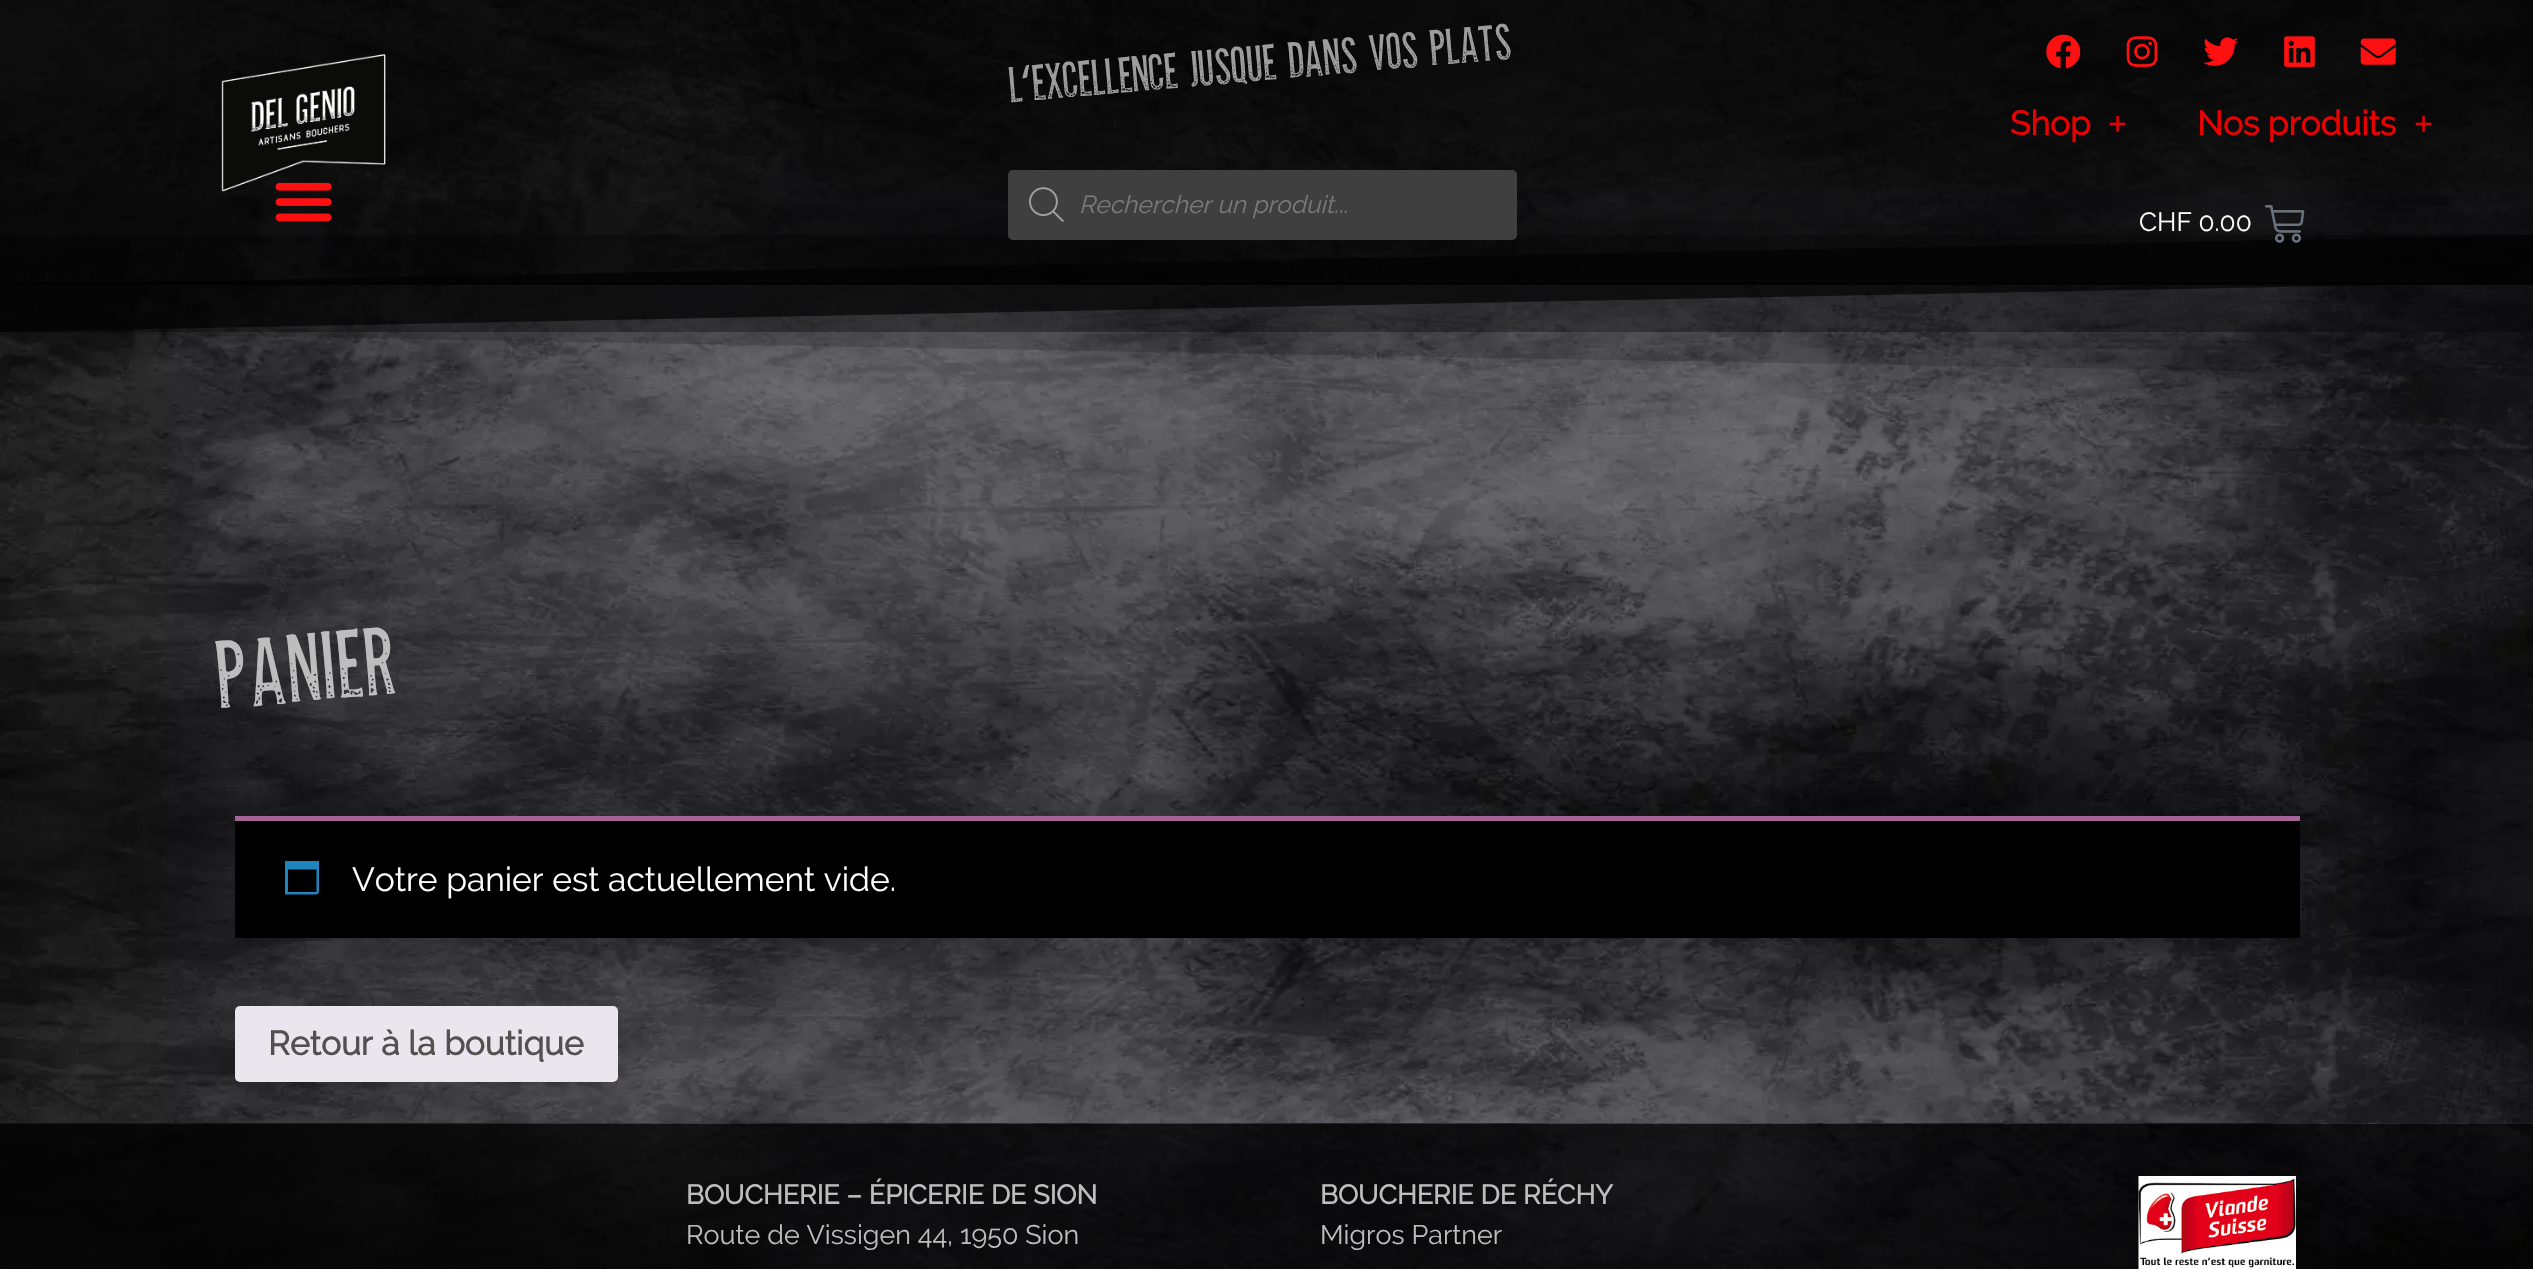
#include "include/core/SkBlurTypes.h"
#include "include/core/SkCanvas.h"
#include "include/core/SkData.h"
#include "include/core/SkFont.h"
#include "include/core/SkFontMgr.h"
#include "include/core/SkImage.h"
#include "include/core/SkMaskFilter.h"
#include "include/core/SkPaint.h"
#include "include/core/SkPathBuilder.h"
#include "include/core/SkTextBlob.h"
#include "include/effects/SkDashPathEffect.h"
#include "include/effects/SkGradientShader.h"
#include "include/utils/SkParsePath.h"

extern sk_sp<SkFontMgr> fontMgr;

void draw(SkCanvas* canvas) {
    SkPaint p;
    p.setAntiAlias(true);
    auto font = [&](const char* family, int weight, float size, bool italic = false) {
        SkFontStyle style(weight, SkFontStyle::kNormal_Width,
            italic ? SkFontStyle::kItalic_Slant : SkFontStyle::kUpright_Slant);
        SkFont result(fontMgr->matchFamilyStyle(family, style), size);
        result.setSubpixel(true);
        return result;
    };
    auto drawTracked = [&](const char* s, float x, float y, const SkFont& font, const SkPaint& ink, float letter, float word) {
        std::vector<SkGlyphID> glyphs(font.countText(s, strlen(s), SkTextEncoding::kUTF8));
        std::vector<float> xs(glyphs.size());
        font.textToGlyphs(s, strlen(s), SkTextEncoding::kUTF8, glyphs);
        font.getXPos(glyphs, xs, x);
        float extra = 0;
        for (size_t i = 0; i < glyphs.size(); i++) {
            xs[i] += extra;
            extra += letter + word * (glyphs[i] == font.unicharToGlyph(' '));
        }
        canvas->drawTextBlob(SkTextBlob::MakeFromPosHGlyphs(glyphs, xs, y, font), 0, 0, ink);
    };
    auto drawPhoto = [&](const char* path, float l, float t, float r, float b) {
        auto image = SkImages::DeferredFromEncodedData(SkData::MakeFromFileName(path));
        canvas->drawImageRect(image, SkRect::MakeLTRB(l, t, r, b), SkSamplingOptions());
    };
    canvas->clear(0xFFFFFFFF);
    drawPhoto("media/1.png", 0, 284, 2533, 1123);
    drawPhoto("media/2.png", 0, 0, 2533, 284);
    p.setColor(0xAD000000);
    canvas->drawPath(SkPathBuilder().moveTo(-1, 285).lineTo(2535, 285).lineTo(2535, 235).close().detach(), p);
    p.setColor(0x57000000);
    canvas->drawRect(SkRect::MakeLTRB(0, 235, 2533, 285), p);
    p.setColor(0x2B000000);
    canvas->drawPath(SkPathBuilder().moveTo(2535, 285).lineTo(-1, 285).lineTo(-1, 191).lineTo(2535, 235).close().detach(), p);
    drawPhoto("media/3.png", 221, 54, 386, 192);
    drawPhoto("media/4.png", 275, 182, 332, 222);
    auto font1 = font("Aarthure", 400, 40.25f);
    p.setColor(0xFF9D9D9D);
    canvas->save();
    canvas->rotate(-5, 1009, 103);
    drawTracked("L'EXCELLENCE JUSQUE DANS VOS PLATS", 1009, 103, font1, p, -2.3f, 0);
    canvas->restore();
    p.setColor(0xFF3F3F3F);
    canvas->drawRoundRect(SkRect::MakeLTRB(1008, 170, 1517, 240), 5, 5, p);
    drawPhoto("media/5.png", 1029, 187, 1064, 222);
    auto font2 = font("Raleway", 400, 24.5f, true);
    p.setColor(0xFF797979);
    canvas->drawString("Rechercher un produit...", 1079, 213, font2, p);
    drawPhoto("media/6.png", 2046, 34, 2081, 69);
    drawPhoto("media/7.png", 2126, 36, 2158, 67);
    drawPhoto("media/8.png", 2203, 37, 2239, 66);
    drawPhoto("media/9.png", 2284, 36, 2315, 67);
    drawPhoto("media/10.png", 2360, 38, 2396, 65);
    auto font3 = font("Raleway", 700, 33.6f);
    p.setColor(0xFFE90101);
    canvas->drawString("Shop", 2010, 135, font3, p);
    auto font4 = font("Liberation Serif", 700, 33.6f);
    canvas->drawString("+", 2108, 135, font4, p);
    canvas->drawString("Nos produits", 2197, 135, font3, p);
    canvas->drawString("+", 2414, 135, font4, p);
    auto font5 = font("Raleway", 400, 26.25f);
    p.setColor(0xFFFFFFFF);
    canvas->drawString("CHF 0.00", 2139, 231, font5, p);
    drawPhoto("media/11.png", 2264, 205, 2305, 243);
    p.setColor(0xAD000000);
    canvas->drawPath(SkPathBuilder().moveTo(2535, 282).lineTo(-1, 282).lineTo(-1, 332).close().detach(), p);
    p.setColor(0x57000000);
    canvas->drawRect(SkRect::MakeLTRB(0, 284, 2533, 332), p);
    p.setColor(0x2B000000);
    canvas->drawPath(SkPathBuilder().moveTo(-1, 282).lineTo(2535, 282).lineTo(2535, 376).lineTo(-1, 332).close().detach(), p);
    auto font6 = font("Aarthure", 400, 77);
    p.setColor(0xFFBDBDBD);
    canvas->save();
    canvas->rotate(-5, 217, 710);
    drawTracked("PANIER", 217, 710, font6, p, -2.3f, 0);
    canvas->restore();
    p.setColor(0xFF000000);
    canvas->drawRect(SkRect::MakeLTRB(235, 821, 2300, 938), p);
    p.setColor(0xFFA46497);
    canvas->drawRect(SkRect::MakeLTRB(235, 816, 2300, 821), p);
    p.setColor(0xFF1E85BE);
    canvas->drawPath(SkPathBuilder().moveTo(316.5f, 869.5f).lineTo(288, 869.5f).lineTo(288, 892).lineTo(316.5f, 892).close().moveTo(319, 861).lineTo(319, 886.5f).cubicTo(319, 895, 319.5f, 894.5f, 311, 894.5f).lineTo(285, 894.5f).lineTo(285, 861).close().detach(), p);
    auto font7 = font("Raleway", 400, 33.6f);
    p.setColor(0xFFFFFFFF);
    canvas->drawString("Votre panier est actuellement vide.", 352, 891, font7, p);
    p.setColor(0xFFE9E6ED);
    canvas->drawRoundRect(SkRect::MakeLTRB(235, 1006, 618, 1082), 5, 5, p);
    p.setColor(0xFF515151);
    canvas->drawString("Retour à la boutique", 268, 1055, font3, p);
    drawPhoto("media/12.png", 0, 1123, 2533, 1269);
    auto font8 = font("Raleway", 700, 26.9f);
    p.setColor(0xFFBDBDBD);
    canvas->drawString("BOUCHERIE – ÉPICERIE DE SION", 686, 1204, font8, p);
    auto font9 = font("Raleway", 400, 26.9f);
    canvas->drawString("Route de Vissigen 44, 1950 Sion", 686, 1244, font9, p);
    canvas->drawString("BOUCHERIE DE RÉCHY", 1320, 1204, font8, p);
    canvas->drawString("Migros Partner", 1320, 1244, font9, p);
    drawPhoto("media/13.png", 2138, 1176, 2296, 1269);
}
